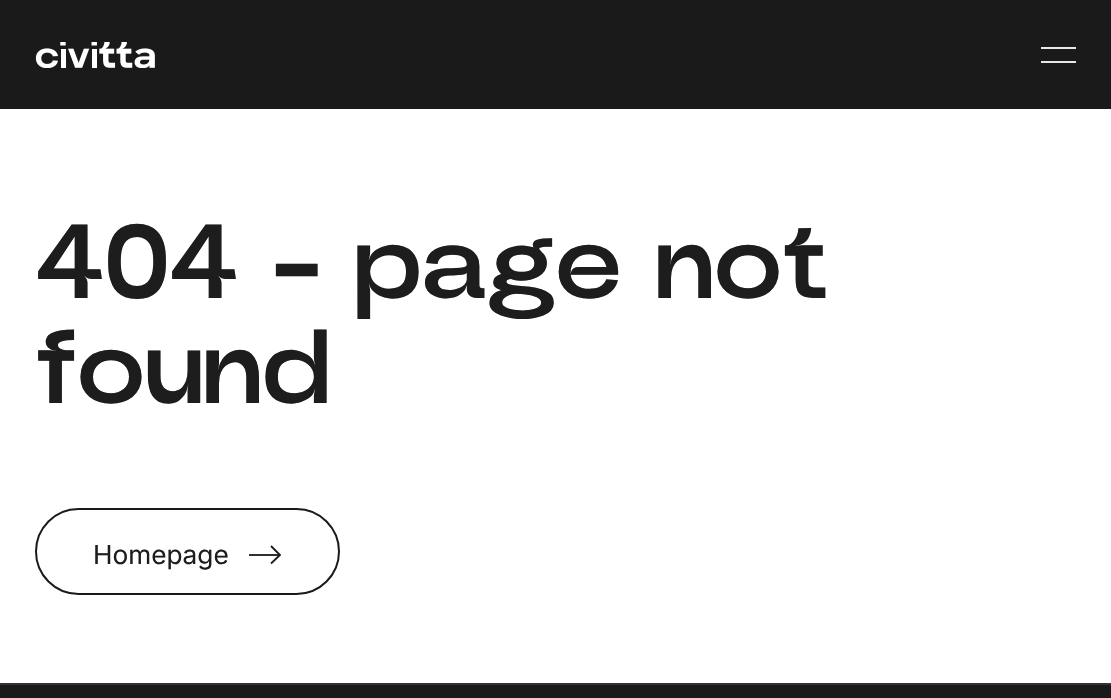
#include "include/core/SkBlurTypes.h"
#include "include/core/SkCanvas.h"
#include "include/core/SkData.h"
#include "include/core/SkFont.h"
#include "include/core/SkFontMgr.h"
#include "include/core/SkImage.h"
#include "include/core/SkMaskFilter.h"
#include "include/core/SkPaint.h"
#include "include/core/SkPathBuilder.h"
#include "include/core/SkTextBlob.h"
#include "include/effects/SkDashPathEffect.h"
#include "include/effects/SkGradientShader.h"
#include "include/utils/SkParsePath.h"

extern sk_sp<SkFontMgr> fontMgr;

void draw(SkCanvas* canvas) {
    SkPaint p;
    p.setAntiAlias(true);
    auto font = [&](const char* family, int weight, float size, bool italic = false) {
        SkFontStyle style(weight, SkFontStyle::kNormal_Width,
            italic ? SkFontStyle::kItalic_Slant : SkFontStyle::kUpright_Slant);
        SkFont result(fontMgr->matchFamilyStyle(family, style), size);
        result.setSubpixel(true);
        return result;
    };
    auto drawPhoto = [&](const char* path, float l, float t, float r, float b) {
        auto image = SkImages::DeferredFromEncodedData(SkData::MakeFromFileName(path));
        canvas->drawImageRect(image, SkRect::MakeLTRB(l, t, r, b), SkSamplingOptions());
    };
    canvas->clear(0xFFFFFFFF);
    p.setColor(0xFF1A1A1A);
    canvas->drawRect(SkRect::MakeLTRB(0, 0, 1111, 109), p);
    drawPhoto("media/1.png", 35, 42, 155, 68);
    p.setColor(0xFFE8E8E8);
    canvas->drawRect(SkRect::MakeLTRB(1041, 47, 1076, 49), p);
    canvas->drawRect(SkRect::MakeLTRB(1041, 61, 1076, 63), p);
    auto font1 = font("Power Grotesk", 500, 105);
    p.setColor(0xFF1D1D1D);
    canvas->drawString("404 - page not", 35, 298, font1, p);
    canvas->drawString("found", 35, 403, font1, p);
    p.setStyle(SkPaint::kStroke_Style);
    p.setStrokeWidth(2);
    p.setColor(0xFF1A1A1A);
    canvas->drawRoundRect(SkRect::MakeLTRB(36, 509, 339, 594), 42.5f, 42.5f, p);
    auto font2 = font("Inter", 400, 26.25f);
    p.setStyle(SkPaint::kFill_Style);
    p.setColor(0xFF1D1D1D);
    canvas->drawString("Homepage", 93, 564, font2, p);
    p.setStyle(SkPaint::kStroke_Style);
    p.setStrokeWidth(1.8f);
    p.setColor(0xFF1A1A1A);
    canvas->drawPath(SkPathBuilder().moveTo(271, 563.5f).lineTo(280, 555).lineTo(271, 546).detach(), p);
    p.setStyle(SkPaint::kFill_Style);
    {
        const struct { float l, t, r, b; SkColor color; } items[] = {
            {249, 554, 280, 556, 0xE61A1A1A},
            {0, 685, 1111, 698, 0xFF1A1A1A},
            {0, 683, 1111, 685, 0xFF343434},
        };
        for (auto [l, t, r, b, color] : items) {
            p.setColor(color);
            canvas->drawRect(SkRect::MakeLTRB(l, t, r, b), p);
        }
    }
}
